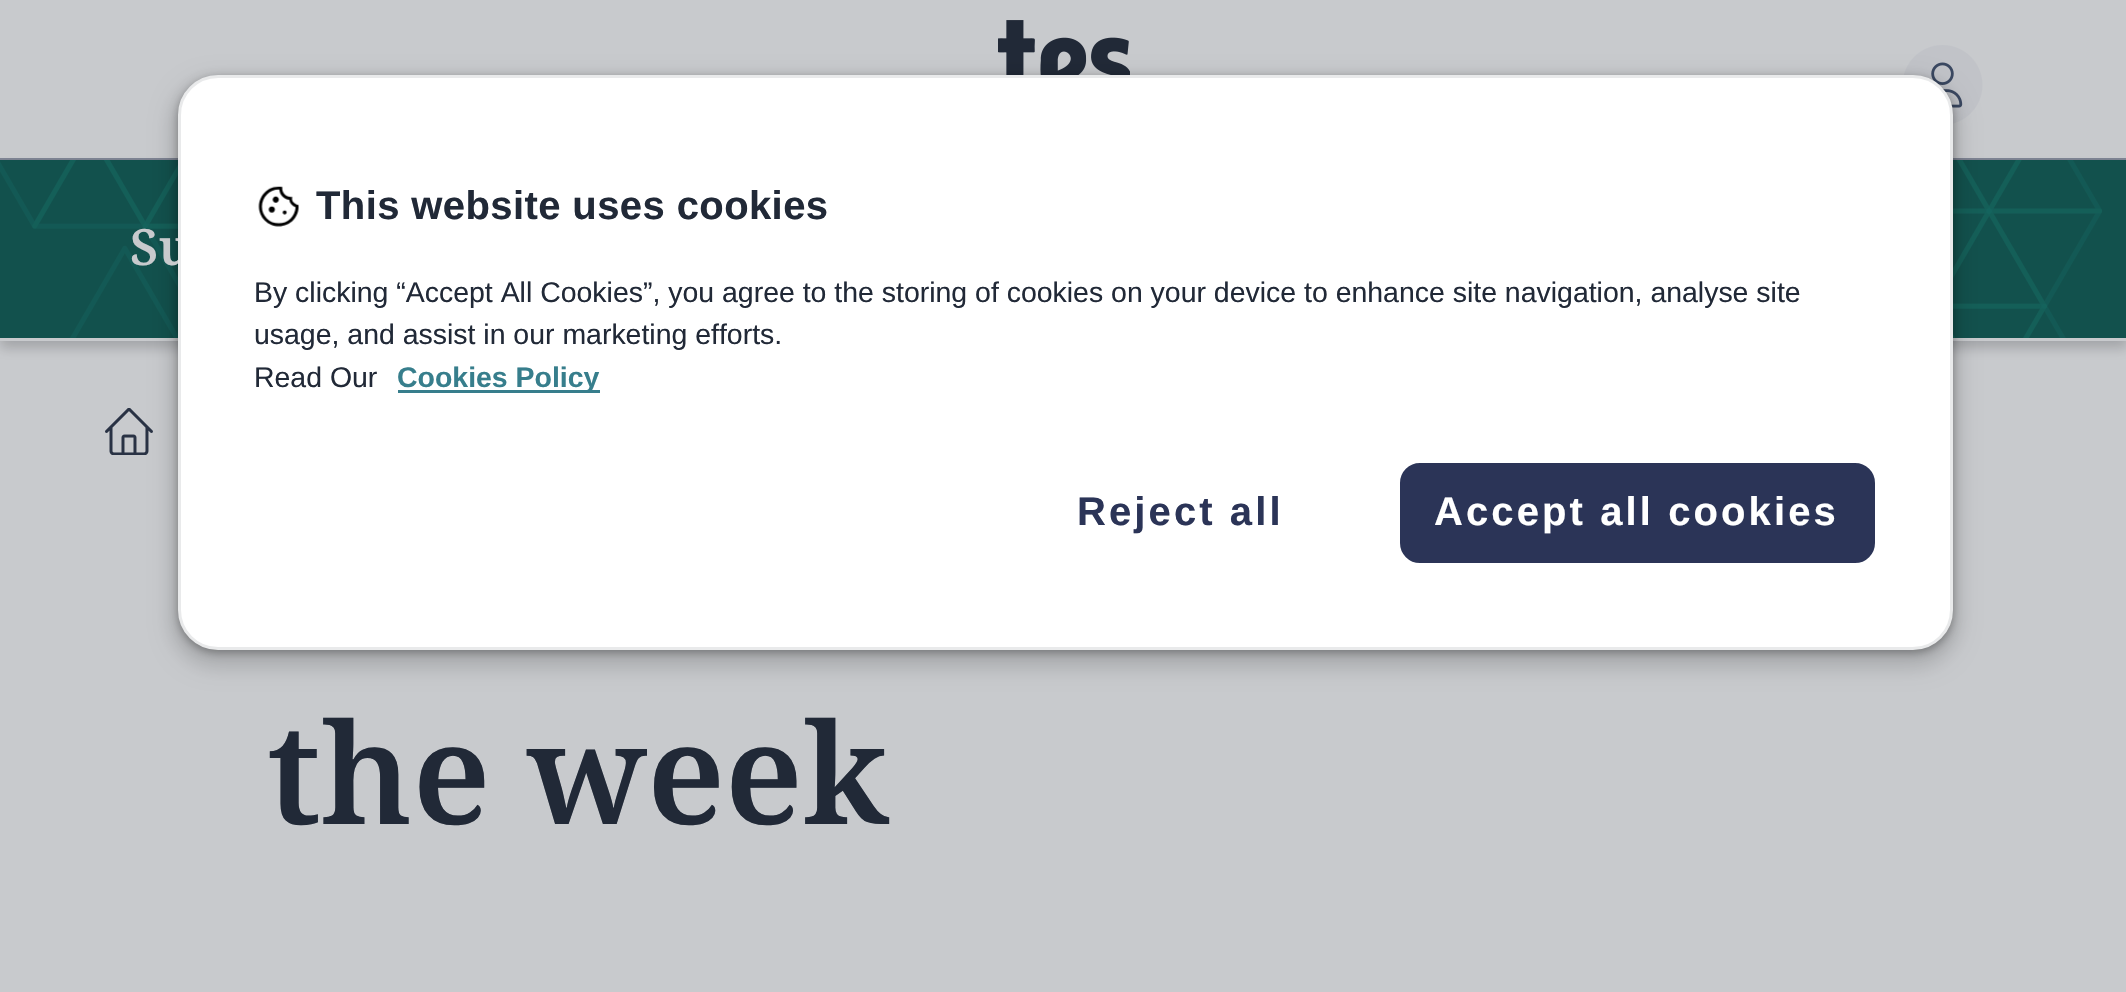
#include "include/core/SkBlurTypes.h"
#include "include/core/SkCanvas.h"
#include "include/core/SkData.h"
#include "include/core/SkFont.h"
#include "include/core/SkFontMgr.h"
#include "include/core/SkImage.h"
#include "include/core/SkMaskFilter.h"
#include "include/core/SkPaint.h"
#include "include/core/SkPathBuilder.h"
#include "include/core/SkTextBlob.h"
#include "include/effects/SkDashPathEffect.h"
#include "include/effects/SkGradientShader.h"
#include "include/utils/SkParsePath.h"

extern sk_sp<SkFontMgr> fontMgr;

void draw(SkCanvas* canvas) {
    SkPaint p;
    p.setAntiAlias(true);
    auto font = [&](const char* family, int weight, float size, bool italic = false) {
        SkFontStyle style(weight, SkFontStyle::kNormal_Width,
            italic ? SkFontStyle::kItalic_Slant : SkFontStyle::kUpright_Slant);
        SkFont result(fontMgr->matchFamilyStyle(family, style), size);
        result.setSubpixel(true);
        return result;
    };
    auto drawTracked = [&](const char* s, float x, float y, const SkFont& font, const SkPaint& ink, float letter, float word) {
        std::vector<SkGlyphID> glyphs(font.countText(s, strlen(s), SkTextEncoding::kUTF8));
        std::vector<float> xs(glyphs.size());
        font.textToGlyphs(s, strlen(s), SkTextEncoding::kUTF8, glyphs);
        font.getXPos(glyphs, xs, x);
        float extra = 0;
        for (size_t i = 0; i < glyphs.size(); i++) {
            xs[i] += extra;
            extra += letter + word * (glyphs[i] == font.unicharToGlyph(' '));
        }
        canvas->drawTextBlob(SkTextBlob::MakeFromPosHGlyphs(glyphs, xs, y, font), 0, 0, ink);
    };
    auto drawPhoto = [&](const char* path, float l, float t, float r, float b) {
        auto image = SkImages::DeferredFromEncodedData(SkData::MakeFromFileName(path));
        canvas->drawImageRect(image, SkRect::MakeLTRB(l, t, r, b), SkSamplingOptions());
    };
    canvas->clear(0xFFC8CACD);
    p.setColor(0xFF7E8493);
    canvas->drawRect(SkRect::MakeLTRB(0, 158, 2126, 160), p);
    drawPhoto("media/2.png", 998, 20, 1130, 75);
    drawPhoto("media/3.png", 1903, 45, 1983, 124);
    p.setColor(0x33080A0E);
    p.setMaskFilter(SkMaskFilter::MakeBlur(kNormal_SkBlurStyle, 6));
    canvas->drawRect(SkRect::MakeLTRB(0, 168, 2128, 348), p);
    p.setMaskFilter(nullptr);
    p.setColor(0xFF12514D);
    canvas->drawRect(SkRect::MakeLTRB(0, 160, 2126, 338), p);
    drawPhoto("media/4.png", 1953, 160, 2102, 338);
    drawPhoto("media/5.png", 0, 160, 178, 338);
    p.setColor(0xFFC8CACD);
    canvas->drawRect(SkRect::MakeLTRB(0, 338, 2126, 341), p);
    p.setColor(0x4D000000);
    p.setMaskFilter(SkMaskFilter::MakeBlur(kNormal_SkBlurStyle, 4));
    canvas->drawRoundRect(SkRect::MakeLTRB(178, 78, 1953, 653), 40, 40, p);
    p.setMaskFilter(nullptr);
    drawPhoto("media/6.png", 105, 408, 153, 455);
    p.setColor(0x26000000);
    p.setMaskFilter(SkMaskFilter::MakeBlur(kNormal_SkBlurStyle, 10));
    canvas->drawRoundRect(SkRect::MakeLTRB(170, 78, 1960, 668), 48, 48, p);
    p.setMaskFilter(nullptr);
    auto font1 = font("Noto Serif", 600, 50);
    p.setColor(0xFFC8CACD);
    canvas->drawString("Su", 130, 265, font1, p);
    p.setColor(0xFFFFFFFF);
    canvas->drawRoundRect(SkRect::MakeLTRB(179.5f, 76.5f, 1951.5f, 648.5f), 38.5f, 38.5f, p);
    p.setStyle(SkPaint::kStroke_Style);
    p.setStrokeWidth(3);
    p.setColor(0xFFE9EAEB);
    canvas->drawRoundRect(SkRect::MakeLTRB(179.5f, 76.5f, 1951.5f, 648.5f), 38.5f, 38.5f, p);
    drawPhoto("media/1.png", 258, 186, 299, 227);
    auto font2 = font("Liberation Sans", 700, 40);
    p.setStyle(SkPaint::kFill_Style);
    p.setColor(0xFF212937);
    drawTracked("This website uses cookies", 316, 219, font2, p, 0.4f, 0);
    auto font3 = font("Liberation Sans", 400, 28.45f);
    {
        const struct { const char* s; float x, y; } items[] = {
            {"By clicking “Accept All Cookies”, you agree to the storing of cookies on your device to enhance site navigation, analyse site", 254, 302},
            {"usage, and assist in our marketing efforts.", 254, 344},
            {"Read Our", 254, 387},
        };
        for (auto [s, x, y] : items) {
            canvas->drawString(s, x, y, font3, p);
        }
    }
    p.setColor(0xFF377E8C);
    canvas->drawRect(SkRect::MakeLTRB(398, 390, 600, 393), p);
    auto font4 = font("Liberation Sans", 700, 28.45f);
    canvas->drawString("Cookies Policy", 397, 387, font4, p);
    p.setColor(0xFF2B3457);
    drawTracked("Reject all", 1077, 525, font2, p, 3.1f, 0);
    canvas->drawRoundRect(SkRect::MakeLTRB(1401.5f, 464.5f, 1873.5f, 561.5f), 18.5f, 18.5f, p);
    p.setStyle(SkPaint::kStroke_Style);
    canvas->drawRoundRect(SkRect::MakeLTRB(1401.5f, 464.5f, 1873.5f, 561.5f), 18.5f, 18.5f, p);
    p.setStyle(SkPaint::kFill_Style);
    p.setColor(0xFFFFFFFF);
    drawTracked("Accept all cookies", 1434, 525, font2, p, 3.1f, 0);
    auto font5 = font("Noto Serif", 600, 140);
    p.setColor(0xFF212937);
    canvas->drawString("the week", 267, 824, font5, p);
}
